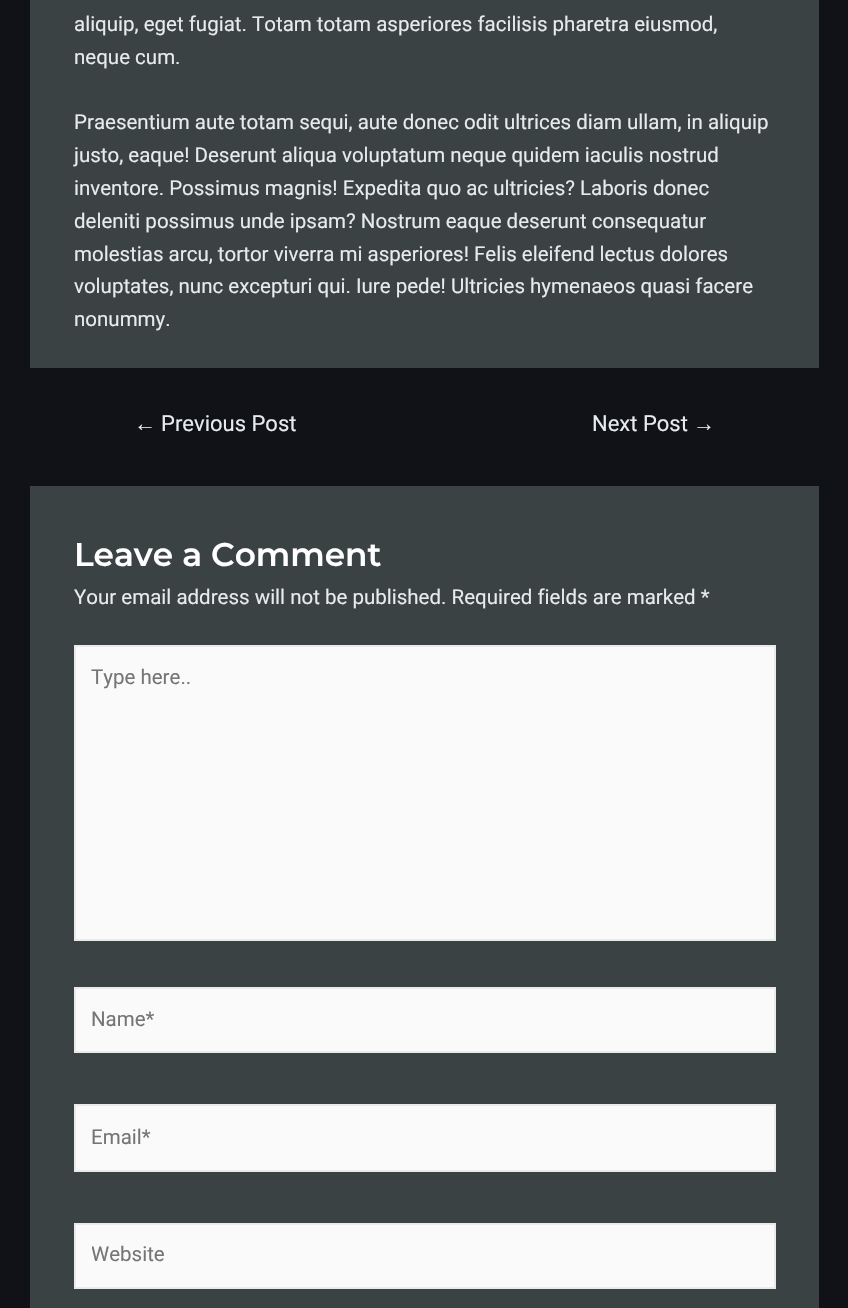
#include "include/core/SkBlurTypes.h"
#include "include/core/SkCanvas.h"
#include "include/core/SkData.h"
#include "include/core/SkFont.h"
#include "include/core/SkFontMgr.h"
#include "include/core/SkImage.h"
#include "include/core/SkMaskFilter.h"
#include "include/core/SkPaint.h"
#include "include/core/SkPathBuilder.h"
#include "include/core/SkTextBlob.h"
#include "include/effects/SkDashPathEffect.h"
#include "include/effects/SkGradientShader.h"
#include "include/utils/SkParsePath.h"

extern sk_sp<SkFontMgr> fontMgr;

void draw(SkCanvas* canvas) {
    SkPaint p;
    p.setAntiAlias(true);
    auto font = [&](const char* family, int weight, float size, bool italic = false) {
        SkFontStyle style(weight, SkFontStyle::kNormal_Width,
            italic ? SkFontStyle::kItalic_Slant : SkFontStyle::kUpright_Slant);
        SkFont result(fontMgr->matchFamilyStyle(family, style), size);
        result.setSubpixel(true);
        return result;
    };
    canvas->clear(0xFF101218);
    p.setColor(0xFF3B4244);
    canvas->drawRect(SkRect::MakeLTRB(30, 0, 819, 368), p);
    auto font1 = font("Roboto", 400, 20.5f);
    p.setColor(0xFFE8EBEC);
    {
        const struct { const char* s; float x, y; } items[] = {
            {"aliquip, eget fugiat. Totam totam asperiores facilisis pharetra eiusmod,", 74, 31},
            {"neque cum.", 74, 64},
            {"Praesentium aute totam sequi, aute donec odit ultrices diam ullam, in aliquip", 74, 129},
            {"justo, eaque! Deserunt aliqua voluptatum neque quidem iaculis nostrud", 74, 162},
            {"inventore. Possimus magnis! Expedita quo ac ultricies? Laboris donec", 74, 195},
            {"deleniti possimus unde ipsam? Nostrum eaque deserunt consequatur", 74, 228},
            {"molestias arcu, tortor viverra mi asperiores! Felis eleifend lectus dolores", 74, 261},
            {"voluptates, nunc excepturi qui. Iure pede! Ultricies hymenaeos quasi facere", 74, 293},
            {"nonummy.", 74, 326},
        };
        for (auto [s, x, y] : items) {
            canvas->drawString(s, x, y, font1, p);
        }
    }
    auto font2 = font("Liberation Sans", 400, 22);
    canvas->drawString("←", 134, 431, font2, p);
    auto font3 = font("Roboto", 400, 22);
    canvas->drawString("Previous Post", 161, 431, font3, p);
    canvas->drawString("Next Post", 592, 431, font3, p);
    canvas->drawString("→", 693, 431, font2, p);
    p.setColor(0xFF3B4244);
    canvas->drawRect(SkRect::MakeLTRB(30, 486, 819, 1308), p);
    auto font4 = font("Montserrat", 600, 32.75f);
    p.setColor(0xFFFFFFFF);
    canvas->drawString("Leave a Comment", 74, 566, font4, p);
    p.setColor(0xFFE8EBEC);
    canvas->drawString("Your email address will not be published. Required fields are marked *", 74, 604, font1, p);
    p.setColor(0xFFFAFAFA);
    canvas->drawRect(SkRect::MakeLTRB(75, 646, 775, 940), p);
    p.setStyle(SkPaint::kStroke_Style);
    p.setStrokeWidth(2);
    p.setColor(0xFFEAEAEA);
    canvas->drawRect(SkRect::MakeLTRB(75, 646, 775, 940), p);
    p.setStyle(SkPaint::kFill_Style);
    p.setColor(0xFF757575);
    canvas->drawString("Type here..", 91, 684, font1, p);
    p.setColor(0xFFFAFAFA);
    canvas->drawRect(SkRect::MakeLTRB(75, 988, 775, 1052), p);
    p.setStyle(SkPaint::kStroke_Style);
    p.setColor(0xFFEAEAEA);
    canvas->drawRect(SkRect::MakeLTRB(75, 988, 775, 1052), p);
    p.setStyle(SkPaint::kFill_Style);
    p.setColor(0xFF757575);
    canvas->drawString("Name*", 91, 1026, font1, p);
    p.setColor(0xFFFAFAFA);
    canvas->drawRect(SkRect::MakeLTRB(75, 1105, 775, 1171), p);
    p.setStyle(SkPaint::kStroke_Style);
    p.setColor(0xFFEAEAEA);
    canvas->drawRect(SkRect::MakeLTRB(75, 1105, 775, 1171), p);
    p.setStyle(SkPaint::kFill_Style);
    p.setColor(0xFF757575);
    canvas->drawString("Email*", 91, 1144, font1, p);
    p.setColor(0xFFFAFAFA);
    canvas->drawRect(SkRect::MakeLTRB(75, 1224, 775, 1288), p);
    p.setStyle(SkPaint::kStroke_Style);
    p.setColor(0xFFEAEAEA);
    canvas->drawRect(SkRect::MakeLTRB(75, 1224, 775, 1288), p);
    canvas->save();
    canvas->clipRect(SkRect::MakeLTRB(92, 1242, 758, 1266));
    p.setStyle(SkPaint::kFill_Style);
    p.setColor(0xFF757575);
    canvas->drawString("Website", 91, 1261, font1, p);
    canvas->restore();
}
